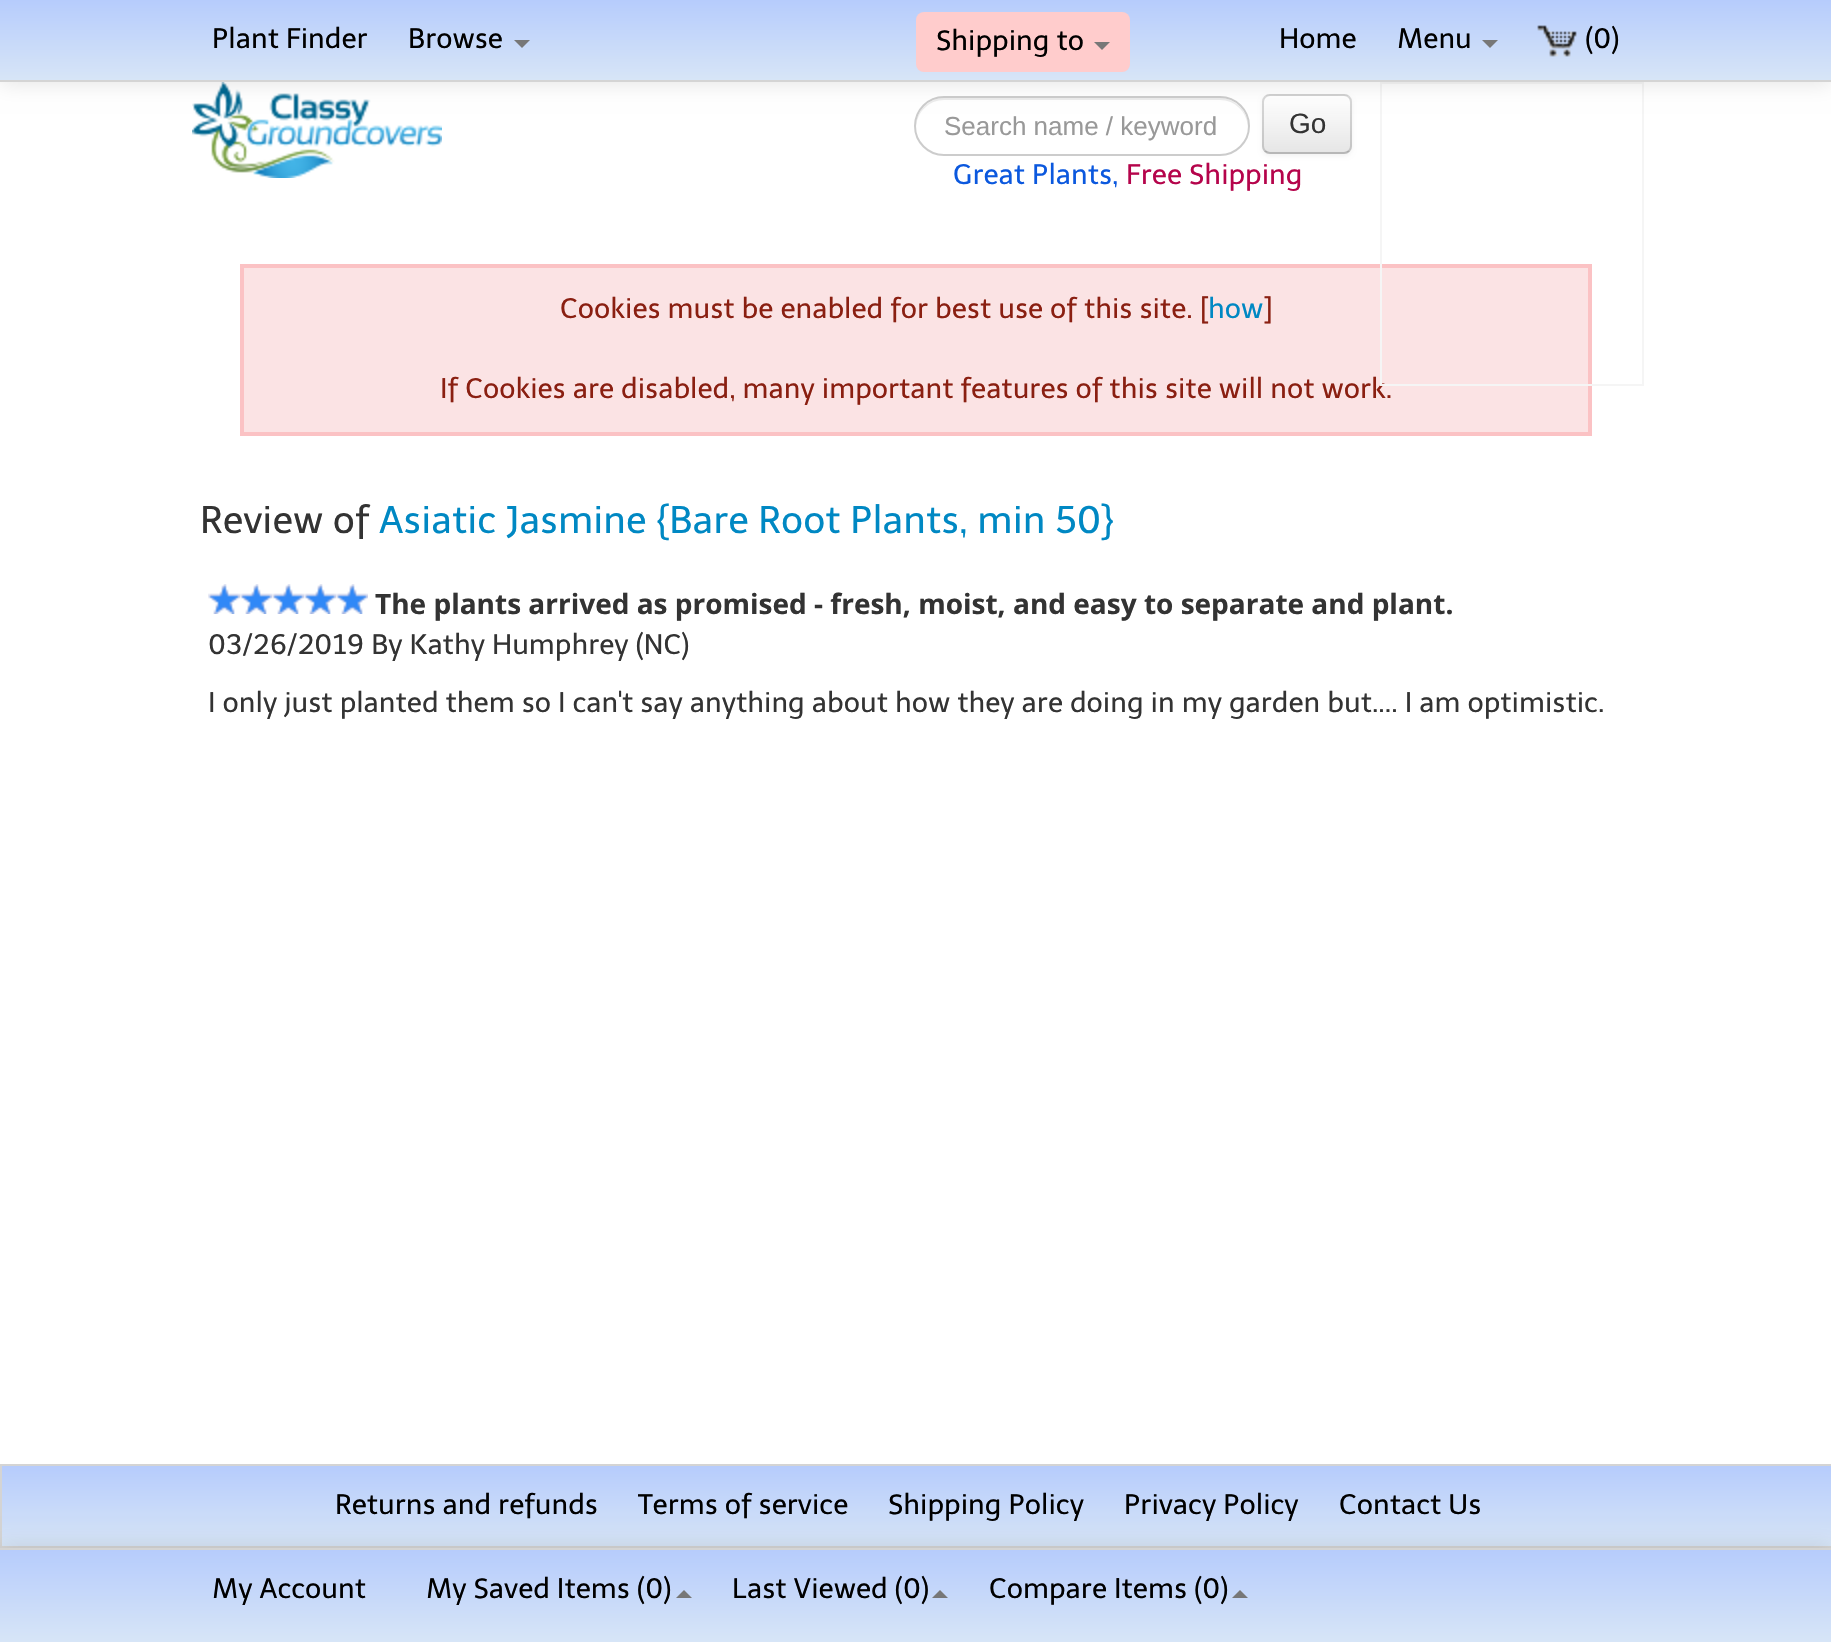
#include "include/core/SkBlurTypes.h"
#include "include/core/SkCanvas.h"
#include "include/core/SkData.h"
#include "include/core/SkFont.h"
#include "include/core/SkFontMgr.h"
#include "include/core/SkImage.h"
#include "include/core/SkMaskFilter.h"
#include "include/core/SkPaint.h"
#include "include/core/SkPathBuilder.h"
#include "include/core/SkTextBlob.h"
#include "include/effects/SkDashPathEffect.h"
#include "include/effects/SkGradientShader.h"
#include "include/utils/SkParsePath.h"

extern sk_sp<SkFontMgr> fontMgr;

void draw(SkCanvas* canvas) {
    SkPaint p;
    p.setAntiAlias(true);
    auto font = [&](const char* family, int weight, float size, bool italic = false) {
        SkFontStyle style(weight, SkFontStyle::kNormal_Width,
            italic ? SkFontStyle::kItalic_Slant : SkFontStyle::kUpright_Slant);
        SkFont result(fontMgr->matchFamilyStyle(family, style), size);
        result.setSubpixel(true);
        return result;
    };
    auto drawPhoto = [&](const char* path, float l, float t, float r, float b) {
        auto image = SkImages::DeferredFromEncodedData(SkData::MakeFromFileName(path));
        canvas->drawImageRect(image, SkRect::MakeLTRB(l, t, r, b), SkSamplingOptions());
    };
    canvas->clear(0xFFFFFFFF);
    drawPhoto("media/2.png", 192, 82, 442, 178);
    p.setColor(0xFFECECEC);
    canvas->drawPath(SkPathBuilder().moveTo(944, 100).lineTo(1220, 100).cubicTo(1235, 100, 1247, 112, 1248, 127).lineTo(1248, 126).cubicTo(1248, 111, 1235, 98, 1220, 98).lineTo(944, 98).cubicTo(929, 98, 916, 111, 916, 126).lineTo(916, 127).cubicTo(917, 112, 929, 100, 944, 100).close().detach(), p);
    p.setStyle(SkPaint::kStroke_Style);
    p.setStrokeWidth(2);
    p.setColor(0xFFCCCCCC);
    canvas->drawRoundRect(SkRect::MakeLTRB(915, 97, 1249, 155), 29, 29, p);
    p.setStyle(SkPaint::kFill_Style);
    p.setColor(0x0D000000);
    p.setMaskFilter(SkMaskFilter::MakeBlur(kNormal_SkBlurStyle, 2));
    canvas->drawRoundRect(SkRect::MakeLTRB(1262, 96, 1352, 156), 8, 8, p);
    p.setMaskFilter(nullptr);
    p.setColor(0xFFF5F5F5);
    canvas->drawRoundRect(SkRect::MakeLTRB(1262, 94, 1352, 154), 8, 8, p);
    canvas->save();
    canvas->clipPath(SkPathBuilder().moveTo(1270, 94).lineTo(1344, 94).cubicTo(1348.5f, 94, 1352, 97.5f, 1352, 102).lineTo(1352, 146).cubicTo(1352, 150.5f, 1348.5f, 154, 1344, 154).lineTo(1270, 154).cubicTo(1265.5f, 154, 1262, 150.5f, 1262, 146).lineTo(1262, 102).cubicTo(1262, 97.5f, 1265.5f, 94, 1270, 94).close().detach(), true);
    {
        const SkColor colors[] = {0xFFFFFFFF, 0xFFE6E6E6};
        const float stops[] = {0, 1};
        const SkPoint ends[] = {{1307, 96}, {1307, 152}};
        p.setShader(SkGradientShader::MakeLinear(ends, colors, stops, 2, SkTileMode::kClamp));
        p.setAlpha(255);
    }
    canvas->drawRect(SkRect::MakeLTRB(1262, 96, 1352, 152), p);
    canvas->restore();
    p.setShader(nullptr);
    p.setColor(0xFFFFFFFF);
    canvas->drawPath(SkPathBuilder().moveTo(1270, 98).lineTo(1344, 98).cubicTo(1347, 98, 1350, 101, 1350, 104).cubicTo(1350, 93, 1341, 96, 1332, 96).lineTo(1282, 96).cubicTo(1273, 96, 1264, 93, 1264, 104).cubicTo(1264, 101, 1267, 98, 1270, 98).close().detach(), p);
    p.setStyle(SkPaint::kStroke_Style);
    p.setColor(0x40000000);
    canvas->drawPath(SkPathBuilder().moveTo(1349, 151).cubicTo(1347.5f, 152.5f, 1346, 153, 1344, 153).lineTo(1270, 153).cubicTo(1268, 153, 1266.5f, 152.5f, 1265, 151).detach(), p);
    p.setColor(0x26000000);
    canvas->drawPath(SkPathBuilder().moveTo(1265, 151).cubicTo(1263.5f, 149.5f, 1263, 148, 1263, 146).lineTo(1263, 102).cubicTo(1263, 100, 1263.5f, 98.5f, 1265, 97).cubicTo(1266.5f, 95.5f, 1268, 95, 1270, 95).lineTo(1344, 95).cubicTo(1346, 95, 1347.5f, 95.5f, 1349, 97).cubicTo(1350.5f, 98.5f, 1351, 100, 1351, 102).lineTo(1351, 146).cubicTo(1351, 148, 1350.5f, 149.5f, 1349, 151).detach(), p);
    p.setStyle(SkPaint::kFill_Style);
    p.setColor(0xFFFBE3E4);
    canvas->drawRect(SkRect::MakeLTRB(242, 266, 1590, 434), p);
    p.setStyle(SkPaint::kStroke_Style);
    p.setStrokeWidth(4);
    p.setColor(0xFFFBC2C4);
    canvas->drawRect(SkRect::MakeLTRB(242, 266, 1590, 434), p);
    auto font1 = font("Telex", 400, 28);
    p.setStyle(SkPaint::kFill_Style);
    p.setColor(0xFF8A1F11);
    canvas->drawString("If Cookies are disabled, many important features of this site will not work.", 440, 398, font1, p);
    p.setStyle(SkPaint::kStroke_Style);
    p.setStrokeWidth(2);
    p.setColor(0xFFF5F5F5);
    canvas->drawRect(SkRect::MakeLTRB(1381, 83, 1643, 385), p);
    p.setStyle(SkPaint::kFill_Style);
    p.setColor(0x1A000000);
    p.setMaskFilter(SkMaskFilter::MakeBlur(kNormal_SkBlurStyle, 10));
    canvas->drawRect(SkRect::MakeLTRB(0, 2, 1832, 84), p);
    p.setMaskFilter(nullptr);
    {
        const SkColor colors[] = {0xFFB6CCFC, 0xFFD7E5F7};
        const float stops[] = {0, 1};
        const SkPoint ends[] = {{916, 0}, {916, 80}};
        p.setShader(SkGradientShader::MakeLinear(ends, colors, stops, 2, SkTileMode::kClamp));
        p.setAlpha(255);
    }
    canvas->drawRect(SkRect::MakeLTRB(0, 0, 1831, 80), p);
    p.setShader(nullptr);
    p.setColor(0xFFD4D4D4);
    canvas->drawRect(SkRect::MakeLTRB(0, 80, 1831, 82), p);
    p.setColor(0xFF000000);
    canvas->drawString("Plant Finder", 212, 48, font1, p);
    canvas->drawString("Browse", 408, 48, font1, p);
    p.setColor(0xFF777777);
    canvas->drawPath(SkPathBuilder().moveTo(514, 40).lineTo(530, 40).lineTo(522, 48).close().detach(), p);
    p.setColor(0xFFFFCCCC);
    canvas->drawRoundRect(SkRect::MakeLTRB(916, 12, 1130, 72), 8, 8, p);
    p.setColor(0xFF000000);
    canvas->drawString("Shipping to", 936, 50, font1, p);
    p.setColor(0xFF777777);
    canvas->drawPath(SkPathBuilder().moveTo(1094, 42).lineTo(1110, 42).lineTo(1102, 50).close().detach(), p);
    p.setColor(0xFF000000);
    canvas->drawString("Home", 1279, 48, font1, p);
    canvas->drawString("Menu", 1397, 48, font1, p);
    p.setColor(0xFF777777);
    canvas->drawPath(SkPathBuilder().moveTo(1482, 40).lineTo(1498, 40).lineTo(1490, 48).close().detach(), p);
    drawPhoto("media/1.png", 1537, 25, 1577, 57);
    p.setColor(0xFF000000);
    canvas->drawString("(0)", 1585, 48, font1, p);
    auto font2 = font("Liberation Sans", 400, 26);
    p.setColor(0xFF999999);
    canvas->drawString("Search name / keyword", 944, 135, font2, p);
    auto font3 = font("Liberation Sans", 400, 28);
    p.setColor(0xFF333333);
    canvas->drawString("Go", 1289, 133, font3, p);
    p.setColor(0xFF0B58DE);
    canvas->drawString("Great Plants,", 953, 184, font1, p);
    p.setColor(0xFFB5044B);
    canvas->drawString("Free Shipping", 1126, 184, font1, p);
    p.setColor(0xFF8A1F11);
    canvas->drawString("Cookies must be enabled for best use of this site. [", 560, 318, font1, p);
    p.setColor(0xFF0088C3);
    canvas->drawString("how", 1208, 318, font1, p);
    p.setColor(0xFF8A1F11);
    canvas->drawString("]", 1264, 318, font1, p);
    auto font4 = font("Telex", 400, 38.1f);
    p.setColor(0xFF333333);
    canvas->drawString("Review of", 200, 533, font4, p);
    p.setColor(0xFF0088C3);
    canvas->drawString("Asiatic Jasmine {Bare Root Plants, min 50}", 379, 533, font4, p);
    drawPhoto("media/3.png", 208, 584, 240, 614);
    drawPhoto("media/3.png", 240, 584, 272, 614);
    drawPhoto("media/3.png", 272, 584, 304, 614);
    drawPhoto("media/3.png", 304, 584, 336, 614);
    drawPhoto("media/3.png", 336, 584, 368, 614);
    auto font5 = font("Open Sans", 700, 28);
    p.setColor(0xFF333333);
    canvas->drawString("The plants arrived as promised - fresh, moist, and easy to separate and plant.", 375, 614, font5, p);
    canvas->drawString("03/26/2019 By Kathy Humphrey (NC)", 208, 654, font1, p);
    canvas->drawString("I only just planted them so I can't say anything about how they are doing in my garden but.... I am optimistic.", 208, 712, font1, p);
    {
        const SkColor colors[] = {0xFFB6CCFC, 0xFFD7E5F7};
        const float stops[] = {0, 1};
        const SkPoint ends[] = {{918, 1466}, {918, 1546}};
        p.setShader(SkGradientShader::MakeLinear(ends, colors, stops, 2, SkTileMode::kClamp));
        p.setAlpha(255);
    }
    canvas->drawRect(SkRect::MakeLTRB(2, 1466, 1831, 1546), p);
    p.setStyle(SkPaint::kStroke_Style);
    p.setShader(nullptr);
    p.setColor(0xFFD4D4D4);
    canvas->drawRect(SkRect::MakeLTRB(1, 1465, 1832, 1547), p);
    p.setStyle(SkPaint::kFill_Style);
    p.setColor(0xFF000000);
    {
        const struct { const char* s; float x, y; } items[] = {
            {"Returns and refunds", 335, 1514},
            {"Terms of service", 638, 1514},
            {"Shipping Policy", 888, 1514},
            {"Privacy Policy", 1124, 1514},
            {"Contact Us", 1339, 1514},
        };
        for (auto [s, x, y] : items) {
            canvas->drawString(s, x, y, font1, p);
        }
    }
    p.setColor(0x1A000000);
    p.setMaskFilter(SkMaskFilter::MakeBlur(kNormal_SkBlurStyle, 10));
    canvas->drawRect(SkRect::MakeLTRB(0, 1546, 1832, 1640), p);
    p.setMaskFilter(nullptr);
    {
        const SkColor colors[] = {0xFFB6CCFC, 0xFFD7E5F7};
        const float stops[] = {0, 1};
        const SkPoint ends[] = {{916, 1550}, {916, 1642}};
        p.setShader(SkGradientShader::MakeLinear(ends, colors, stops, 2, SkTileMode::kClamp));
        p.setAlpha(255);
    }
    canvas->drawRect(SkRect::MakeLTRB(0, 1550, 1831, 1642), p);
    p.setShader(nullptr);
    p.setColor(0xFFD4D4D4);
    canvas->drawRect(SkRect::MakeLTRB(0, 1548, 1831, 1550), p);
    p.setColor(0xFF000000);
    canvas->drawString("My Account", 212, 1598, font1, p);
    canvas->drawString("My Saved Items (0)", 426, 1598, font1, p);
    p.setColor(0xFF777777);
    canvas->drawPath(SkPathBuilder().moveTo(692, 1598).lineTo(676, 1598).lineTo(684, 1590).close().detach(), p);
    p.setColor(0xFF000000);
    canvas->drawString("Last Viewed (0)", 732, 1598, font1, p);
    p.setColor(0xFF777777);
    canvas->drawPath(SkPathBuilder().moveTo(948, 1598).lineTo(932, 1598).lineTo(940, 1590).close().detach(), p);
    p.setColor(0xFF000000);
    canvas->drawString("Compare Items (0)", 989, 1598, font1, p);
    p.setColor(0xFF777777);
    canvas->drawPath(SkPathBuilder().moveTo(1248, 1598).lineTo(1232, 1598).lineTo(1240, 1590).close().detach(), p);
}
